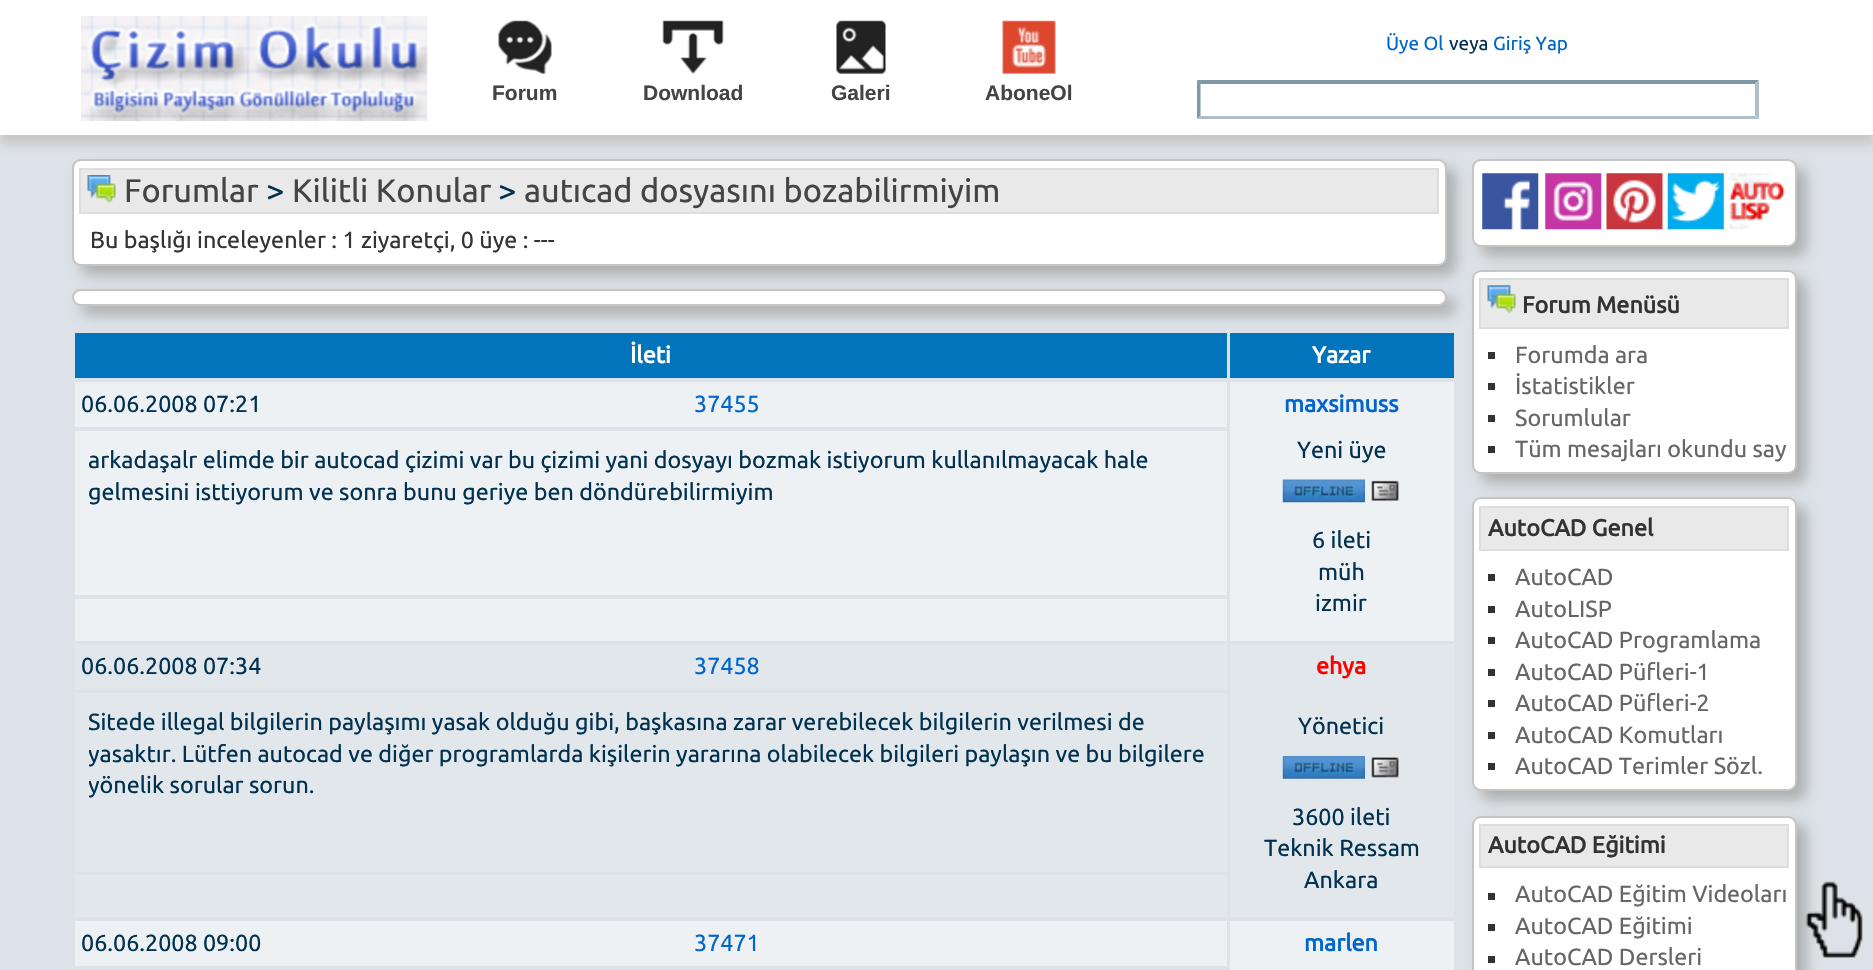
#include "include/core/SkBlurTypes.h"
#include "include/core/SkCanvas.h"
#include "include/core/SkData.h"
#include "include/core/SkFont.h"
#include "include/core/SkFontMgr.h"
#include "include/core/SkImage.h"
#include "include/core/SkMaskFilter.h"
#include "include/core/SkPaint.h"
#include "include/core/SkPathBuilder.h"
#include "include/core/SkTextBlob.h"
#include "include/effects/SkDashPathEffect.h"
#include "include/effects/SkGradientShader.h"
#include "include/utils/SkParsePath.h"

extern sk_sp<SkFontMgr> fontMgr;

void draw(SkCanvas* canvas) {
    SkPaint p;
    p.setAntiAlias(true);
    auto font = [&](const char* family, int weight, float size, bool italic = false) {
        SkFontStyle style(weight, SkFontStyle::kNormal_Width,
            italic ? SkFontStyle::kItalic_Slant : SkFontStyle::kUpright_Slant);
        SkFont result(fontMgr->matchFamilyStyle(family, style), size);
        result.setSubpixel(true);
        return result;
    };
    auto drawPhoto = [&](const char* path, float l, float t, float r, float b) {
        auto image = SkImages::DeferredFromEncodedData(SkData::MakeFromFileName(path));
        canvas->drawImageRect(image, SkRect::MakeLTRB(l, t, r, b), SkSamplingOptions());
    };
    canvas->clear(0xFFDCE2E7);
    p.setColor(0xFFC7C7C7);
    p.setMaskFilter(SkMaskFilter::MakeBlur(kNormal_SkBlurStyle, 4.5f));
    canvas->drawRect(SkRect::MakeLTRB(0, 9, 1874, 144), p);
    p.setMaskFilter(nullptr);
    p.setColor(0xFFFFFFFF);
    canvas->drawRect(SkRect::MakeLTRB(0, 0, 1873, 135), p);
    drawPhoto("media/1.png", 81, 16, 428, 121);
    auto font1 = font("Ubuntu", 400, 19);
    p.setColor(0xFF0066CC);
    canvas->drawString("Üye Ol", 1386, 50, font1, p);
    p.setColor(0xFF003150);
    canvas->drawString("veya", 1449, 50, font1, p);
    p.setColor(0xFF0066CC);
    canvas->drawString("Giriş Yap", 1493, 50, font1, p);
    drawPhoto("media/2.png", 498, 20, 552, 74);
    drawPhoto("media/3.png", 662, 20, 724, 74);
    drawPhoto("media/4.png", 836, 20, 886, 74);
    drawPhoto("media/5.png", 1002, 20, 1056, 74);
    auto font2 = font("Liberation Sans", 700, 21);
    p.setColor(0xFF444444);
    {
        const struct { const char* s; float x, y; } items[] = {
            {"Forum", 492, 100},
            {"Download", 643, 100},
            {"Galeri", 831, 100},
            {"AboneOl", 985, 100},
        };
        for (auto [s, x, y] : items) {
            canvas->drawString(s, x, y, font2, p);
        }
    }
    p.setColor(0xFF7F98A7);
    canvas->drawPath(SkPathBuilder().moveTo(1197, 80).lineTo(1759, 80).lineTo(1755, 84).lineTo(1200, 84).close().detach(), p);
    p.setColor(0xFFAFBFC8);
    canvas->drawPath(SkPathBuilder().moveTo(1759, 80.5f).lineTo(1759, 119).lineTo(1755, 115.5f).lineTo(1755, 84).close().detach(), p);
    canvas->drawPath(SkPathBuilder().moveTo(1759, 119).lineTo(1197, 119).lineTo(1200, 116).lineTo(1755, 116).close().detach(), p);
    p.setColor(0xFF7F98A7);
    canvas->drawPath(SkPathBuilder().moveTo(1197, 119).lineTo(1197, 80.5f).lineTo(1200.5f, 84).lineTo(1200.5f, 115.5f).close().detach(), p);
    p.setColor(0xFFADADAD);
    p.setMaskFilter(SkMaskFilter::MakeBlur(kNormal_SkBlurStyle, 7));
    canvas->drawRoundRect(SkRect::MakeLTRB(1481, 168, 1806, 256), 9, 9, p);
    p.setMaskFilter(nullptr);
    p.setColor(0xFFFFFFFF);
    canvas->drawRoundRect(SkRect::MakeLTRB(1473, 160, 1796, 246), 8, 8, p);
    p.setStyle(SkPaint::kStroke_Style);
    p.setStrokeWidth(2);
    p.setColor(0xFFC5C5C5);
    canvas->drawRoundRect(SkRect::MakeLTRB(1473, 160, 1796, 246), 8, 8, p);
    p.setStyle(SkPaint::kFill_Style);
    p.setColor(0xFFADADAD);
    p.setMaskFilter(SkMaskFilter::MakeBlur(kNormal_SkBlurStyle, 7));
    canvas->drawRoundRect(SkRect::MakeLTRB(1481, 278, 1806, 483), 9, 9, p);
    p.setMaskFilter(nullptr);
    p.setColor(0xFFFFFFFF);
    canvas->drawRoundRect(SkRect::MakeLTRB(1473, 271, 1796, 473), 8, 8, p);
    p.setStyle(SkPaint::kStroke_Style);
    p.setColor(0xFFC5C5C5);
    canvas->drawRoundRect(SkRect::MakeLTRB(1473, 271, 1796, 473), 8, 8, p);
    p.setStyle(SkPaint::kFill_Style);
    p.setColor(0xFFADADAD);
    p.setMaskFilter(SkMaskFilter::MakeBlur(kNormal_SkBlurStyle, 7));
    canvas->drawRoundRect(SkRect::MakeLTRB(81, 168, 1456, 275), 9, 9, p);
    p.setMaskFilter(nullptr);
    p.setColor(0xFFFFFFFF);
    canvas->drawRoundRect(SkRect::MakeLTRB(73, 160, 1446, 265), 8, 8, p);
    p.setStyle(SkPaint::kStroke_Style);
    p.setColor(0xFFC5C5C5);
    canvas->drawRoundRect(SkRect::MakeLTRB(73, 160, 1446, 265), 8, 8, p);
    p.setStyle(SkPaint::kFill_Style);
    p.setColor(0xFFE9E9E9);
    canvas->drawRect(SkRect::MakeLTRB(80, 169, 1438, 213), p);
    p.setStyle(SkPaint::kStroke_Style);
    p.setColor(0xFFDDDDDD);
    canvas->drawRect(SkRect::MakeLTRB(80, 169, 1438, 213), p);
    drawPhoto("media/6.png", 87, 175, 116, 203);
    auto font3 = font("Ubuntu", 400, 32.6f);
    p.setStyle(SkPaint::kFill_Style);
    p.setColor(0xFF444444);
    canvas->drawString("Forumlar", 124, 202, font3, p);
    p.setColor(0xFF003150);
    canvas->drawString(">", 266, 202, font3, p);
    p.setColor(0xFF444444);
    canvas->drawString("Kilitli Konular", 292, 202, font3, p);
    p.setColor(0xFF003150);
    canvas->drawString(">", 498, 202, font3, p);
    p.setColor(0xFF444444);
    canvas->drawString("autıcad dosyasını bozabilirmiyim", 524, 202, font3, p);
    auto font4 = font("Ubuntu", 400, 23.3f);
    p.setColor(0xFF333333);
    canvas->drawString("Bu başlığı inceleyenler : 1 ziyaretçi, 0 üye : ---", 90, 248, font4, p);
    p.setColor(0xFFADADAD);
    p.setMaskFilter(SkMaskFilter::MakeBlur(kNormal_SkBlurStyle, 7));
    canvas->drawRoundRect(SkRect::MakeLTRB(81, 298, 1456, 315), 8.5f, 8.5f, p);
    p.setMaskFilter(nullptr);
    p.setColor(0xFFFFFFFF);
    canvas->drawRoundRect(SkRect::MakeLTRB(73, 290, 1446, 305), 7.5f, 7.5f, p);
    p.setStyle(SkPaint::kStroke_Style);
    p.setColor(0xFFC5C5C5);
    canvas->drawRoundRect(SkRect::MakeLTRB(73, 290, 1446, 305), 7.5f, 7.5f, p);
    p.setStyle(SkPaint::kFill_Style);
    p.setColor(0xFF0174BB);
    canvas->drawRect(SkRect::MakeLTRB(75, 333, 1227, 378), p);
    auto font5 = font("Ubuntu", 700, 23.3f);
    p.setColor(0xFFFFFFFF);
    canvas->drawString("İleti", 630, 363, font5, p);
    p.setColor(0xFF0174BB);
    canvas->drawRect(SkRect::MakeLTRB(1230, 333, 1454, 378), p);
    p.setColor(0xFFFFFFFF);
    canvas->drawString("Yazar", 1312, 363, font5, p);
    p.setColor(0xFFEDF1F3);
    canvas->drawRect(SkRect::MakeLTRB(75, 382, 1227, 427), p);
    p.setColor(0xFF003150);
    canvas->drawString("06.06.2008 07:21", 81, 412, font4, p);
    p.setColor(0xFF0066CC);
    canvas->drawString("37455", 694, 412, font4, p);
    p.setColor(0xFFEDF1F3);
    canvas->drawRect(SkRect::MakeLTRB(1230, 382, 1454, 641), p);
    p.setColor(0xFF0066CC);
    canvas->drawString("maxsimuss", 1284, 412, font5, p);
    p.setColor(0xFF003150);
    canvas->drawString("Yeni üye", 1297, 458, font4, p);
    drawPhoto("media/7.png", 1282, 479, 1365, 503);
    drawPhoto("media/8.png", 1371, 480, 1399, 501);
    {
        const struct { const char* s; float x, y; } items[] = {
            {"6 ileti", 1312, 548},
            {"müh", 1318, 580},
            {"izmir", 1315, 611},
        };
        for (auto [s, x, y] : items) {
            canvas->drawString(s, x, y, font4, p);
        }
    }
    p.setColor(0xFFEDF1F3);
    canvas->drawRect(SkRect::MakeLTRB(75, 431, 1227, 595), p);
    p.setColor(0xFF003150);
    canvas->drawString("arkadaşalr elimde bir autocad çizimi var bu çizimi yani dosyayı bozmak istiyorum kullanılmayacak hale", 88, 468, font4, p);
    canvas->drawString("gelmesini isttiyorum ve sonra bunu geriye ben döndürebilirmiyim", 88, 500, font4, p);
    p.setColor(0xFFEDF1F3);
    canvas->drawRect(SkRect::MakeLTRB(75, 599, 1227, 641), p);
    p.setColor(0xFFE1E7EB);
    canvas->drawRect(SkRect::MakeLTRB(75, 644, 1227, 690), p);
    p.setColor(0xFF003150);
    canvas->drawString("06.06.2008 07:34", 81, 674, font4, p);
    p.setColor(0xFF0066CC);
    canvas->drawString("37458", 694, 674, font4, p);
    p.setColor(0xFFE1E7EB);
    canvas->drawRect(SkRect::MakeLTRB(1230, 644, 1454, 917), p);
    p.setColor(0xFFFF0000);
    canvas->drawString("ehya", 1316, 674, font5, p);
    p.setColor(0xFF003150);
    canvas->drawString("Yönetici", 1298, 734, font4, p);
    drawPhoto("media/9.png", 1282, 756, 1365, 779);
    drawPhoto("media/10.png", 1371, 757, 1399, 778);
    {
        const struct { const char* s; float x, y; } items[] = {
            {"3600 ileti", 1292, 825},
            {"Teknik Ressam", 1264, 856},
            {"Ankara", 1304, 888},
        };
        for (auto [s, x, y] : items) {
            canvas->drawString(s, x, y, font4, p);
        }
    }
    p.setColor(0xFFE1E7EB);
    canvas->drawRect(SkRect::MakeLTRB(75, 693, 1227, 872), p);
    p.setColor(0xFF003150);
    canvas->drawString("Sitede illegal bilgilerin paylaşımı yasak olduğu gibi, başkasına zarar verebilecek bilgilerin verilmesi de", 88, 730, font4, p);
    canvas->save();
    canvas->clipRect(SkRect::MakeLTRB(89, 707, 1218, 802));
    canvas->drawString("yasaktır. Lütfen autocad ve diğer programlarda kişilerin yararına olabilecek bilgileri paylaşın ve bu bilgilere", 88, 762, font4, p);
    canvas->drawString("yönelik sorular sorun.", 88, 793, font4, p);
    canvas->restore();
    p.setColor(0xFFE1E7EB);
    canvas->drawRect(SkRect::MakeLTRB(75, 875, 1227, 917), p);
    p.setColor(0xFFEDF1F3);
    canvas->drawRect(SkRect::MakeLTRB(75, 921, 1227, 966), p);
    p.setColor(0xFF003150);
    canvas->drawString("06.06.2008 09:00", 81, 951, font4, p);
    p.setColor(0xFF0066CC);
    canvas->drawString("37471", 694, 951, font4, p);
    p.setColor(0xFFEDF1F3);
    canvas->drawRect(SkRect::MakeLTRB(1230, 921, 1454, 970), p);
    p.setColor(0xFF0066CC);
    canvas->drawString("marlen", 1304, 951, font5, p);
    drawPhoto("media/11.png", 1482, 173, 1539, 230);
    drawPhoto("media/12.png", 1545, 173, 1602, 230);
    drawPhoto("media/13.png", 1606, 173, 1663, 230);
    drawPhoto("media/14.png", 1667, 173, 1724, 230);
    drawPhoto("media/15.png", 1729, 173, 1785, 230);
    p.setColor(0xFFE9E9E9);
    canvas->drawRect(SkRect::MakeLTRB(1480, 279, 1788, 328), p);
    p.setStyle(SkPaint::kStroke_Style);
    p.setColor(0xFFDDDDDD);
    canvas->drawRect(SkRect::MakeLTRB(1480, 279, 1788, 328), p);
    drawPhoto("media/16.png", 1487, 285, 1516, 314);
    p.setStyle(SkPaint::kFill_Style);
    p.setColor(0xFF333333);
    canvas->drawString("Forum Menüsü", 1522, 313, font5, p);
    canvas->drawRect(SkRect::MakeLTRB(1488, 352, 1495, 359), p);
    p.setColor(0xFF666666);
    canvas->drawString("Forumda ara", 1515, 363, font4, p);
    p.setColor(0xFF333333);
    canvas->drawRect(SkRect::MakeLTRB(1488, 383, 1495, 390), p);
    p.setColor(0xFF666666);
    canvas->drawString("İstatistikler", 1515, 394, font4, p);
    p.setColor(0xFF333333);
    canvas->drawRect(SkRect::MakeLTRB(1488, 415, 1495, 422), p);
    p.setColor(0xFF666666);
    canvas->drawString("Sorumlular", 1515, 426, font4, p);
    p.setColor(0xFF333333);
    canvas->drawRect(SkRect::MakeLTRB(1488, 446, 1495, 453), p);
    p.setColor(0xFF666666);
    canvas->drawString("Tüm mesajları okundu say", 1515, 457, font4, p);
    p.setColor(0xFFADADAD);
    p.setMaskFilter(SkMaskFilter::MakeBlur(kNormal_SkBlurStyle, 7));
    canvas->drawRoundRect(SkRect::MakeLTRB(1481, 506, 1806, 800), 9, 9, p);
    p.setMaskFilter(nullptr);
    p.setColor(0xFFFFFFFF);
    canvas->drawRoundRect(SkRect::MakeLTRB(1473, 498, 1796, 790), 8, 8, p);
    p.setStyle(SkPaint::kStroke_Style);
    p.setColor(0xFFC5C5C5);
    canvas->drawRoundRect(SkRect::MakeLTRB(1473, 498, 1796, 790), 8, 8, p);
    p.setStyle(SkPaint::kFill_Style);
    p.setColor(0xFFE9E9E9);
    canvas->drawRect(SkRect::MakeLTRB(1480, 507, 1788, 550), p);
    p.setStyle(SkPaint::kStroke_Style);
    p.setColor(0xFFDDDDDD);
    canvas->drawRect(SkRect::MakeLTRB(1480, 507, 1788, 550), p);
    p.setStyle(SkPaint::kFill_Style);
    p.setColor(0xFF333333);
    canvas->drawString("AutoCAD Genel", 1488, 536, font5, p);
    canvas->drawRect(SkRect::MakeLTRB(1488, 574, 1495, 581), p);
    p.setColor(0xFF666666);
    canvas->drawString("AutoCAD", 1515, 585, font4, p);
    p.setColor(0xFF333333);
    canvas->drawRect(SkRect::MakeLTRB(1488, 606, 1495, 613), p);
    p.setColor(0xFF666666);
    canvas->drawString("AutoLISP", 1515, 617, font4, p);
    p.setColor(0xFF333333);
    canvas->drawRect(SkRect::MakeLTRB(1488, 637, 1495, 644), p);
    p.setColor(0xFF666666);
    canvas->drawString("AutoCAD Programlama", 1515, 648, font4, p);
    p.setColor(0xFF333333);
    canvas->drawRect(SkRect::MakeLTRB(1488, 669, 1495, 676), p);
    p.setColor(0xFF666666);
    canvas->drawString("AutoCAD Püfleri-1", 1515, 680, font4, p);
    p.setColor(0xFF333333);
    canvas->drawRect(SkRect::MakeLTRB(1488, 700, 1495, 707), p);
    p.setColor(0xFF666666);
    canvas->drawString("AutoCAD Püfleri-2", 1515, 711, font4, p);
    p.setColor(0xFF333333);
    canvas->drawRect(SkRect::MakeLTRB(1488, 732, 1495, 739), p);
    p.setColor(0xFF666666);
    canvas->drawString("AutoCAD Komutları", 1515, 743, font4, p);
    p.setColor(0xFF333333);
    canvas->drawRect(SkRect::MakeLTRB(1488, 763, 1495, 770), p);
    p.setColor(0xFF666666);
    canvas->drawString("AutoCAD Terimler Sözl.", 1515, 774, font4, p);
    p.setColor(0xFFADADAD);
    p.setMaskFilter(SkMaskFilter::MakeBlur(kNormal_SkBlurStyle, 7));
    canvas->drawRoundRect(SkRect::MakeLTRB(1481, 824, 1806, 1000), 9, 9, p);
    p.setMaskFilter(nullptr);
    p.setColor(0xFFFFFFFF);
    canvas->drawRoundRect(SkRect::MakeLTRB(1473, 817, 1796, 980), 8, 8, p);
    p.setStyle(SkPaint::kStroke_Style);
    p.setColor(0xFFC5C5C5);
    canvas->drawRoundRect(SkRect::MakeLTRB(1473, 817, 1796, 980), 8, 8, p);
    p.setStyle(SkPaint::kFill_Style);
    p.setColor(0xFFE9E9E9);
    canvas->drawRect(SkRect::MakeLTRB(1480, 825, 1788, 867), p);
    p.setStyle(SkPaint::kStroke_Style);
    p.setColor(0xFFDDDDDD);
    canvas->drawRect(SkRect::MakeLTRB(1480, 825, 1788, 867), p);
    p.setStyle(SkPaint::kFill_Style);
    p.setColor(0xFF333333);
    canvas->drawString("AutoCAD Eğitimi", 1488, 853, font5, p);
    canvas->drawRect(SkRect::MakeLTRB(1488, 893, 1495, 900), p);
    p.setColor(0xFF666666);
    canvas->drawString("AutoCAD Eğitim Videoları", 1515, 902, font4, p);
    p.setColor(0xFF333333);
    canvas->drawRect(SkRect::MakeLTRB(1488, 924, 1495, 931), p);
    p.setColor(0xFF666666);
    canvas->drawString("AutoCAD Eğitimi", 1515, 934, font4, p);
    p.setColor(0xFF333333);
    canvas->drawRect(SkRect::MakeLTRB(1488, 956, 1495, 963), p);
    p.setColor(0xFF666666);
    canvas->drawString("AutoCAD Dersleri", 1515, 965, font4, p);
    drawPhoto("media/17.png", 1805, 881, 1863, 958);
}
